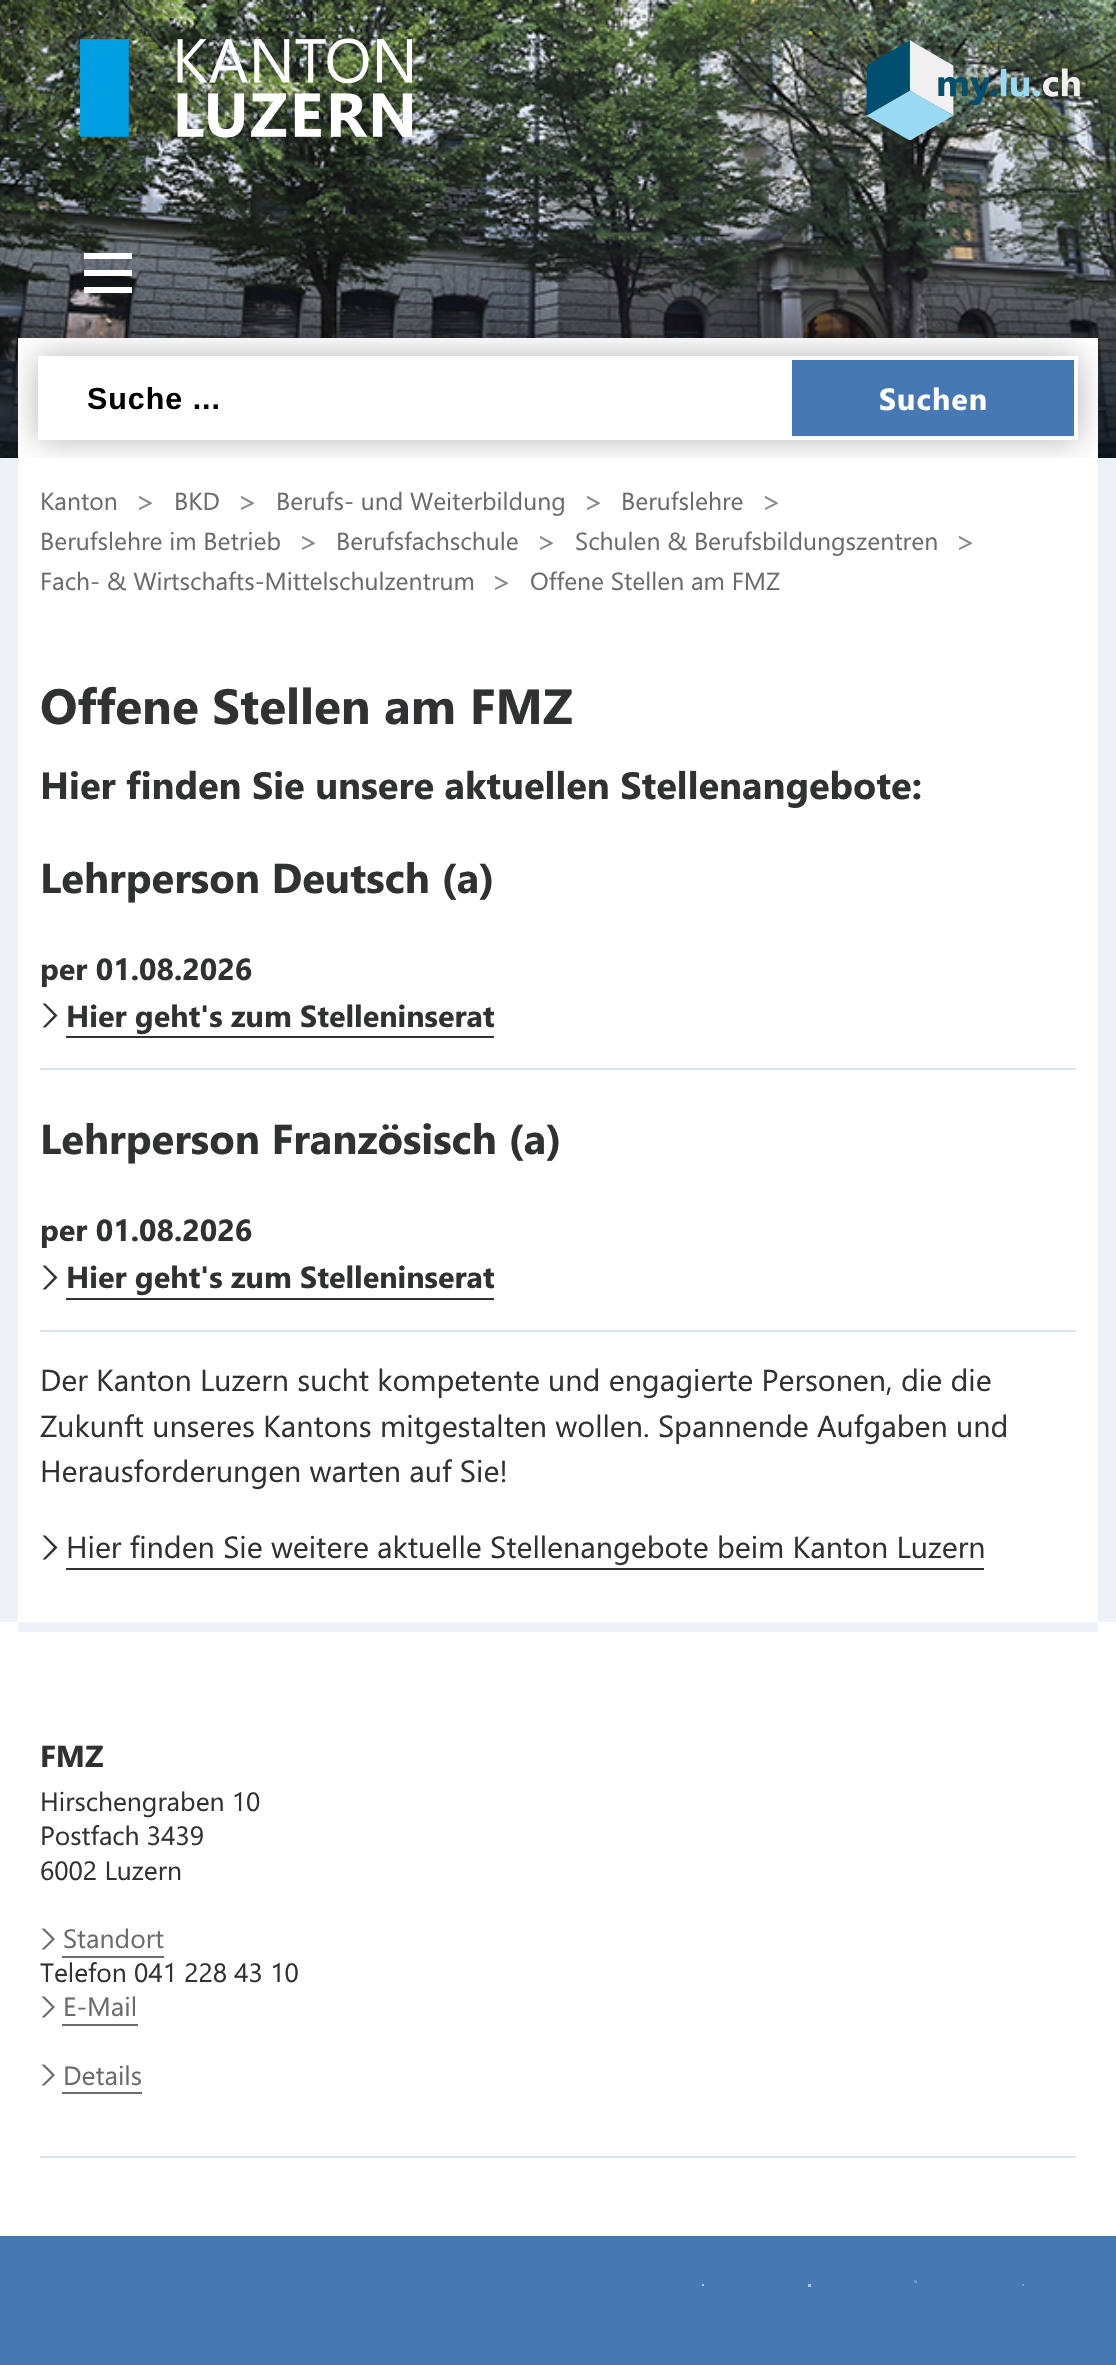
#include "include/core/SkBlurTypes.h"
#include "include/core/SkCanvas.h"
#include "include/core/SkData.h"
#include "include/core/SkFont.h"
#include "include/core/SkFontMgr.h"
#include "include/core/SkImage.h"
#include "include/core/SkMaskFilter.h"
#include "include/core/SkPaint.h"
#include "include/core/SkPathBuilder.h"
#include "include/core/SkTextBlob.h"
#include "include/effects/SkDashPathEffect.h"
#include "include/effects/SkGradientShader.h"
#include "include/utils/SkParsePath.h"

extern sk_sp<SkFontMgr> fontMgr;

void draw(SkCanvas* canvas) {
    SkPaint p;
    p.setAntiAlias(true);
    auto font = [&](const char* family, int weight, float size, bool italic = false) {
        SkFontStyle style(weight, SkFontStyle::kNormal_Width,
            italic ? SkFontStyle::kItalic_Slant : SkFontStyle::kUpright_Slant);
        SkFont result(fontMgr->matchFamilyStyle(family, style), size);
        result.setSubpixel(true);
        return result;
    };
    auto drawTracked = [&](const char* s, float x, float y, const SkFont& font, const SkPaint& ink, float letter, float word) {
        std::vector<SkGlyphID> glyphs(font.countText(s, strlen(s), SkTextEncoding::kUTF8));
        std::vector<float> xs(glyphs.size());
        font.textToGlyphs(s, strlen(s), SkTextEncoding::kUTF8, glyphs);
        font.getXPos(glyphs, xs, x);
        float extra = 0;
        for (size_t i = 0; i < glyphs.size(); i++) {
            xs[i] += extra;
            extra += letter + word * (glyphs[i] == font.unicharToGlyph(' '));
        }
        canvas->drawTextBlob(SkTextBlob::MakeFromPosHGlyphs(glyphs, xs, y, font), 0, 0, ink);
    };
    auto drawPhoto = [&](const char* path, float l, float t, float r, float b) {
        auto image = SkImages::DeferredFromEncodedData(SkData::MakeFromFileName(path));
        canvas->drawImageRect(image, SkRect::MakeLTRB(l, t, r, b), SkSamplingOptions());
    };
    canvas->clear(0xFFFFFFFF);
    drawPhoto("media/1.png", 0, 0, 1116, 458);
    drawPhoto("media/2.png", 80, 38, 412, 138);
    drawPhoto("media/3.png", 866, 40, 1080, 140);
    p.setColor(0xFFFFFFFF);
    canvas->drawPath(SkPathBuilder().moveTo(84, 253).lineTo(84, 259).lineTo(132, 259).lineTo(132, 253).close().moveTo(84, 270).lineTo(84, 276).lineTo(132, 276).lineTo(132, 270).close().moveTo(84, 287).lineTo(84, 293).lineTo(132, 293).lineTo(132, 287).close().detach(), p);
    canvas->drawRect(SkRect::MakeLTRB(18, 338, 1098, 458), p);
    canvas->save();
    canvas->clipRect(SkRect::MakeLTRB(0, 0, 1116, 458));
    canvas->clipPath(SkPathBuilder(SkPathFillType::kEvenOdd).moveTo(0, 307).lineTo(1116, 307).lineTo(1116, 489).lineTo(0, 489).close().moveTo(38, 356).lineTo(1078, 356).lineTo(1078, 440).lineTo(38, 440).close().detach(), true);
    p.setColor(0x4A000000);
    p.setMaskFilter(SkMaskFilter::MakeBlur(kNormal_SkBlurStyle, 16));
    canvas->drawRect(SkRect::MakeLTRB(38, 356, 1078, 440), p);
    p.setMaskFilter(nullptr);
    canvas->restore();
    auto font1 = font("Liberation Sans", 700, 30.4f);
    p.setColor(0xFF000000);
    drawTracked("Suche ...", 87, 409, font1, p, 1, 0);
    p.setColor(0xFF4678B4);
    canvas->drawRect(SkRect::MakeLTRB(792, 360, 1074, 436), p);
    auto font2 = font("Segoe UI", 700, 30.4f);
    p.setColor(0xFFFFFFFF);
    drawTracked("Suchen", 879, 410, font2, p, 1, 0);
    p.setColor(0xFFEDF2F8);
    canvas->drawRect(SkRect::MakeLTRB(18, 1622, 1098, 1632), p);
    p.setColor(0x1A4678B4);
    canvas->drawRect(SkRect::MakeLTRB(0, 360, 18, 1622), p);
    auto font3 = font("Segoe UI", 400, 24.75f);
    p.setColor(0xFF6B6B6B);
    canvas->drawString("Kanton", 40, 510, font3, p);
    auto font4 = font("Segoe UI", 400, 30.4f);
    p.setColor(0xFF898989);
    canvas->drawString(">", 135, 512, font4, p);
    p.setColor(0xFF6B6B6B);
    canvas->drawString("BKD", 174, 510, font3, p);
    p.setColor(0xFF898989);
    canvas->drawString(">", 237, 512, font4, p);
    p.setColor(0xFF6B6B6B);
    canvas->drawString("Berufs- und Weiterbildung", 276, 510, font3, p);
    p.setColor(0xFF898989);
    canvas->drawString(">", 583, 512, font4, p);
    p.setColor(0xFF6B6B6B);
    canvas->drawString("Berufslehre", 621, 510, font3, p);
    p.setColor(0xFF898989);
    canvas->drawString(">", 761, 512, font4, p);
    p.setColor(0xFF6B6B6B);
    canvas->drawString("Berufslehre im Betrieb", 40, 550, font3, p);
    p.setColor(0xFF898989);
    canvas->drawString(">", 298, 552, font4, p);
    p.setColor(0xFF6B6B6B);
    canvas->drawString("Berufsfachschule", 336, 550, font3, p);
    p.setColor(0xFF898989);
    canvas->drawString(">", 536, 552, font4, p);
    p.setColor(0xFF6B6B6B);
    canvas->drawString("Schulen & Berufsbildungszentren", 575, 550, font3, p);
    p.setColor(0xFF898989);
    canvas->drawString(">", 955, 552, font4, p);
    p.setColor(0xFF6B6B6B);
    canvas->drawString("Fach- & Wirtschafts-Mittelschulzentrum", 40, 590, font3, p);
    p.setColor(0xFF898989);
    canvas->drawString(">", 491, 592, font4, p);
    p.setColor(0xFF6B6B6B);
    canvas->drawString("Offene Stellen am FMZ", 530, 590, font3, p);
    p.setColor(0x1A4678B4);
    canvas->drawRect(SkRect::MakeLTRB(1098, 360, 1116, 1622), p);
    auto font5 = font("Segoe UI", 700, 49.4f);
    p.setColor(0xFF303133);
    canvas->drawString("Offene Stellen am FMZ", 40, 724, font5, p);
    auto font6 = font("Segoe UI", 700, 38);
    canvas->drawString("Hier finden Sie unsere aktuellen Stellenangebote:", 40, 799, font6, p);
    auto font7 = font("Segoe UI", 700, 41.75f);
    canvas->drawString("Lehrperson Deutsch (a)", 40, 893, font7, p);
    canvas->drawString("per 01.08.2026", 40, 980, font2, p);
    canvas->drawPath(SkPathBuilder().moveTo(54, 1015.5f).lineTo(42.5f, 1027.5f).lineTo(45.5f, 1027.5f).lineTo(57.5f, 1015.5f).lineTo(45.5f, 1003.5f).lineTo(42.5f, 1003.5f).close().detach(), p);
    canvas->drawString("Hier geht's zum Stelleninserat", 66, 1027, font2, p);
    canvas->drawRect(SkRect::MakeLTRB(66, 1036, 494, 1038), p);
    p.setColor(0xFFDAE4F0);
    canvas->drawRect(SkRect::MakeLTRB(40, 1068, 1076, 1070), p);
    p.setColor(0xFF303133);
    canvas->drawString("Lehrperson Französisch (a)", 40, 1154, font7, p);
    canvas->drawString("per 01.08.2026", 40, 1241, font2, p);
    canvas->drawPath(SkPathBuilder().moveTo(54, 1277.5f).lineTo(42.5f, 1289.5f).lineTo(45.5f, 1289.5f).lineTo(57.5f, 1277.5f).lineTo(45.5f, 1265.5f).lineTo(42.5f, 1265.5f).close().detach(), p);
    canvas->drawString("Hier geht's zum Stelleninserat", 66, 1288, font2, p);
    canvas->drawRect(SkRect::MakeLTRB(66, 1298, 494, 1300), p);
    p.setColor(0xFFDAE4F0);
    canvas->drawRect(SkRect::MakeLTRB(40, 1330, 1076, 1332), p);
    p.setColor(0xFF303133);
    {
        const struct { const char* s; float x, y; } items[] = {
            {"Der Kanton Luzern sucht kompetente und engagierte Personen, die die", 40, 1391},
            {"Zukunft unseres Kantons mitgestalten wollen. Spannende Aufgaben und", 40, 1437},
            {"Herausforderungen warten auf Sie!", 40, 1482},
        };
        for (auto [s, x, y] : items) {
            canvas->drawString(s, x, y, font4, p);
        }
    }
    canvas->drawPath(SkPathBuilder().moveTo(54, 1547.5f).lineTo(42.5f, 1559.5f).lineTo(45.5f, 1559.5f).lineTo(57.5f, 1547.5f).lineTo(45.5f, 1535.5f).lineTo(42.5f, 1535.5f).close().detach(), p);
    canvas->drawString("Hier finden Sie weitere aktuelle Stellenangebote beim Kanton Luzern", 66, 1558, font4, p);
    canvas->drawRect(SkRect::MakeLTRB(66, 1568, 984, 1570), p);
    p.setColor(0xFFDAE4F0);
    canvas->drawRect(SkRect::MakeLTRB(40, 2156, 1076, 2158), p);
    p.setColor(0xFF303133);
    canvas->drawString("FMZ", 40, 1767, font2, p);
    auto font8 = font("Segoe UI", 400, 26.5f);
    {
        const struct { const char* s; float x, y; } items[] = {
            {"Hirschengraben 10", 40, 1811},
            {"Postfach 3439", 40, 1845},
            {"6002 Luzern", 40, 1880},
        };
        for (auto [s, x, y] : items) {
            canvas->drawString(s, x, y, font8, p);
        }
    }
    p.setColor(0xFF6B6B6B);
    canvas->drawPath(SkPathBuilder().moveTo(52, 1939).lineTo(41.5f, 1949.5f).lineTo(44.5f, 1949.5f).lineTo(55, 1939).lineTo(44.5f, 1928.5f).lineTo(41.5f, 1928.5f).close().detach(), p);
    canvas->drawString("Standort", 63, 1948, font8, p);
    canvas->drawRect(SkRect::MakeLTRB(62, 1956, 164, 1958), p);
    p.setColor(0xFF303133);
    canvas->drawString("Telefon 041 228 43 10", 40, 1982, font8, p);
    p.setColor(0xFF6B6B6B);
    canvas->drawPath(SkPathBuilder().moveTo(52, 2007).lineTo(41.5f, 2017.5f).lineTo(44.5f, 2017.5f).lineTo(55, 2007).lineTo(44.5f, 1996.5f).lineTo(41.5f, 1996.5f).close().detach(), p);
    canvas->drawString("E-Mail", 63, 2016, font8, p);
    canvas->drawRect(SkRect::MakeLTRB(62, 2024, 138, 2026), p);
    canvas->drawPath(SkPathBuilder().moveTo(52, 2075).lineTo(41.5f, 2085.5f).lineTo(44.5f, 2085.5f).lineTo(55, 2075).lineTo(44.5f, 2064.5f).lineTo(41.5f, 2064.5f).close().detach(), p);
    canvas->drawString("Details", 63, 2085, font8, p);
    {
        const struct { float l, t, r, b; SkColor color; } items[] = {
            {62, 2092, 142, 2094, 0xFF6B6B6B},
            {0, 2236, 1116, 2365, 0xFF4678B4},
            {914, 2280, 917, 2283, 0xFF6F96C4},
        };
        for (auto [l, t, r, b, color] : items) {
            p.setColor(color);
            canvas->drawRect(SkRect::MakeLTRB(l, t, r, b), p);
        }
    }
    drawPhoto("media/4.png", 702, 2284, 705, 2286);
    p.setColor(0xFFACC2DD);
    canvas->drawRect(SkRect::MakeLTRB(808, 2284, 811, 2287), p);
    drawPhoto("media/5.png", 1022, 2284, 1024, 2286);
}
